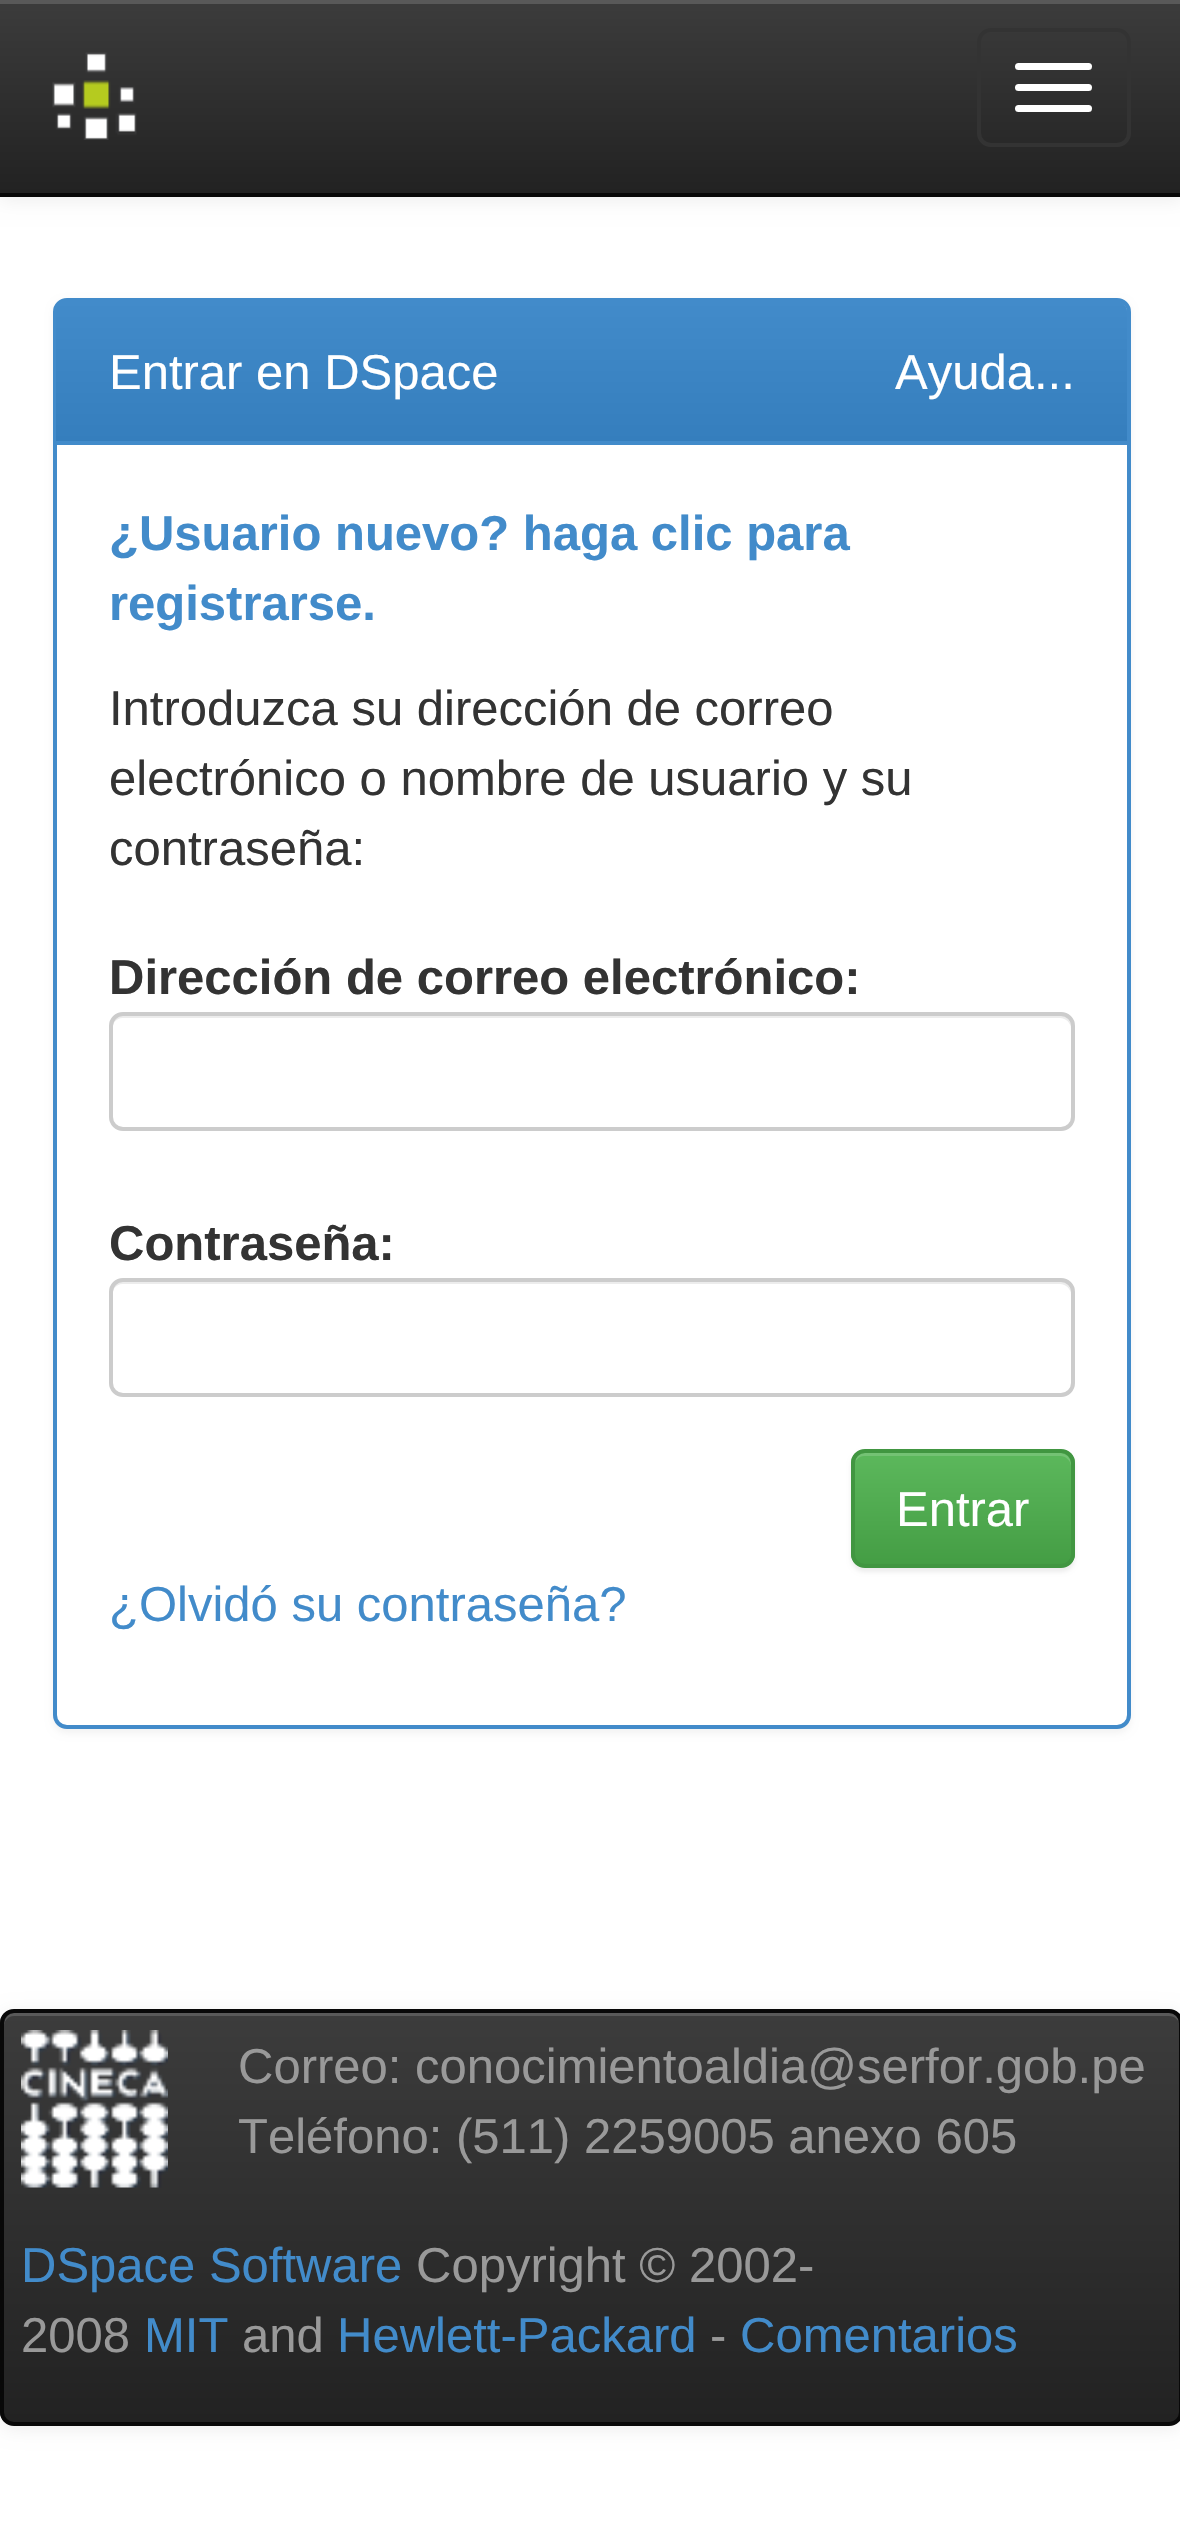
#include "include/core/SkBlurTypes.h"
#include "include/core/SkCanvas.h"
#include "include/core/SkData.h"
#include "include/core/SkFont.h"
#include "include/core/SkFontMgr.h"
#include "include/core/SkImage.h"
#include "include/core/SkMaskFilter.h"
#include "include/core/SkPaint.h"
#include "include/core/SkPathBuilder.h"
#include "include/core/SkTextBlob.h"
#include "include/effects/SkDashPathEffect.h"
#include "include/effects/SkGradientShader.h"
#include "include/utils/SkParsePath.h"

extern sk_sp<SkFontMgr> fontMgr;

void draw(SkCanvas* canvas) {
    SkPaint p;
    p.setAntiAlias(true);
    auto font = [&](const char* family, int weight, float size, bool italic = false) {
        SkFontStyle style(weight, SkFontStyle::kNormal_Width,
            italic ? SkFontStyle::kItalic_Slant : SkFontStyle::kUpright_Slant);
        SkFont result(fontMgr->matchFamilyStyle(family, style), size);
        result.setSubpixel(true);
        return result;
    };
    auto drawPhoto = [&](const char* path, float l, float t, float r, float b) {
        auto image = SkImages::DeferredFromEncodedData(SkData::MakeFromFileName(path));
        canvas->drawImageRect(image, SkRect::MakeLTRB(l, t, r, b), SkSamplingOptions());
    };
    canvas->clear(0xFFFFFFFF);
    p.setColor(0x12000000);
    p.setMaskFilter(SkMaskFilter::MakeBlur(kNormal_SkBlurStyle, 9));
    canvas->drawRect(SkRect::MakeLTRB(0, 4, 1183, 200), p);
    p.setMaskFilter(nullptr);
    {
        const SkColor colors[] = {0xFF3C3C3C, 0xFF222222};
        const float stops[] = {0, 1};
        const SkPoint ends[] = {{592, 0}, {592, 193}};
        p.setShader(SkGradientShader::MakeLinear(ends, colors, stops, 2, SkTileMode::kClamp));
        p.setAlpha(255);
    }
    canvas->drawRect(SkRect::MakeLTRB(0, 4, 1180, 193), p);
    p.setShader(nullptr);
    p.setColor(0xFF595959);
    canvas->drawRect(SkRect::MakeLTRB(0, 0, 1180, 4), p);
    p.setColor(0xFF080808);
    canvas->drawRect(SkRect::MakeLTRB(0, 193, 1180, 197), p);
    drawPhoto("media/1.png", 52, 52, 137, 140);
    p.setStyle(SkPaint::kStroke_Style);
    p.setStrokeWidth(4);
    p.setColor(0xFF333333);
    canvas->drawRoundRect(SkRect::MakeLTRB(979, 30, 1129, 145), 12, 12, p);
    p.setStyle(SkPaint::kFill_Style);
    p.setColor(0xFFFFFFFF);
    canvas->drawRoundRect(SkRect::MakeLTRB(1015, 63, 1092, 70), 3.5f, 3.5f, p);
    canvas->drawRoundRect(SkRect::MakeLTRB(1015, 84, 1092, 91), 3.5f, 3.5f, p);
    canvas->drawRoundRect(SkRect::MakeLTRB(1015, 105, 1092, 112), 3.5f, 3.5f, p);
    p.setColor(0x0D000000);
    p.setMaskFilter(SkMaskFilter::MakeBlur(kNormal_SkBlurStyle, 3.5f));
    canvas->drawRoundRect(SkRect::MakeLTRB(53, 301, 1131, 1733), 14, 14, p);
    p.setMaskFilter(nullptr);
    p.setColor(0xFFFFFFFF);
    canvas->drawRoundRect(SkRect::MakeLTRB(55, 300, 1129, 1727), 12, 12, p);
    p.setStyle(SkPaint::kStroke_Style);
    p.setColor(0xFF428BCA);
    canvas->drawRoundRect(SkRect::MakeLTRB(55, 300, 1129, 1727), 12, 12, p);
    p.setStyle(SkPaint::kFill_Style);
    canvas->drawPath(SkPathBuilder().moveTo(67, 301).lineTo(1116, 301).cubicTo(1122, 301, 1127, 306, 1127, 312).lineTo(1127, 445).lineTo(56, 445).lineTo(56, 312).cubicTo(56, 306, 61, 301, 67, 301).close().detach(), p);
    {
        const SkColor colors[] = {0xFF428BCA, 0xFF357EBD};
        const float stops[] = {0, 1};
        const SkPoint ends[] = {{592, 301}, {592, 441}};
        p.setShader(SkGradientShader::MakeLinear(ends, colors, stops, 2, SkTileMode::kClamp));
        p.setAlpha(255);
    }
    canvas->drawPath(SkPathBuilder().moveTo(67, 301).lineTo(1116, 301).cubicTo(1122, 301, 1127, 306, 1127, 312).lineTo(1127, 441).lineTo(56, 441).lineTo(56, 312).cubicTo(56, 306, 61, 301, 67, 301).close().detach(), p);
    auto font1 = font("Liberation Sans", 400, 49);
    p.setShader(nullptr);
    p.setColor(0xFFFFFFFF);
    canvas->drawString("Entrar en DSpace", 109, 389, font1, p);
    canvas->drawString("Ayuda...", 895, 389, font1, p);
    auto font2 = font("Liberation Sans", 700, 49);
    p.setColor(0xFF428BCA);
    canvas->drawString("¿Usuario nuevo? haga clic para", 109, 550, font2, p);
    canvas->drawString("registrarse.", 109, 620, font2, p);
    p.setColor(0xFF333333);
    {
        const struct { const char* s; float x, y; } items[] = {
            {"Introduzca su dirección de correo", 109, 725},
            {"electrónico o nombre de usuario y su", 109, 795},
            {"contraseña:", 109, 865},
        };
        for (auto [s, x, y] : items) {
            canvas->drawString(s, x, y, font1, p);
        }
    }
    canvas->drawString("Dirección de correo electrónico:", 109, 994, font2, p);
    p.setColor(0xFFECECEC);
    canvas->drawPath(SkPathBuilder().moveTo(122, 1018).lineTo(1060, 1018).cubicTo(1066, 1018, 1071, 1023, 1071, 1029).cubicTo(1071, 1022, 1068, 1015, 1060, 1015).lineTo(123, 1015).cubicTo(115, 1015, 112, 1022, 112, 1029).cubicTo(112, 1023, 117, 1018, 122, 1018).close().detach(), p);
    p.setStyle(SkPaint::kStroke_Style);
    p.setColor(0xFFCCCCCC);
    canvas->drawRoundRect(SkRect::MakeLTRB(111, 1014, 1073, 1129), 12, 12, p);
    p.setStyle(SkPaint::kFill_Style);
    p.setColor(0xFF333333);
    canvas->drawString("Contraseña:", 109, 1260, font2, p);
    p.setColor(0xFFECECEC);
    canvas->drawPath(SkPathBuilder().moveTo(122, 1284).lineTo(1060, 1284).cubicTo(1066, 1284, 1071, 1289, 1071, 1295).cubicTo(1071, 1288, 1068, 1281, 1060, 1281).lineTo(123, 1281).cubicTo(115, 1281, 112, 1288, 112, 1295).cubicTo(112, 1289, 117, 1284, 122, 1284).close().detach(), p);
    p.setStyle(SkPaint::kStroke_Style);
    p.setColor(0xFFCCCCCC);
    canvas->drawRoundRect(SkRect::MakeLTRB(111, 1280, 1073, 1395), 12, 12, p);
    p.setStyle(SkPaint::kFill_Style);
    p.setColor(0x12000000);
    p.setMaskFilter(SkMaskFilter::MakeBlur(kNormal_SkBlurStyle, 2));
    canvas->drawRoundRect(SkRect::MakeLTRB(851, 1453, 1075, 1572), 14, 14, p);
    p.setMaskFilter(nullptr);
    canvas->save();
    canvas->clipPath(SkPathBuilder().moveTo(865, 1449).lineTo(1061, 1449).cubicTo(1068.5f, 1449, 1075, 1455.5f, 1075, 1463).lineTo(1075, 1554).cubicTo(1075, 1561.5f, 1068.5f, 1568, 1061, 1568).lineTo(865, 1568).cubicTo(857.5f, 1568, 851, 1561.5f, 851, 1554).lineTo(851, 1463).cubicTo(851, 1455.5f, 857.5f, 1449, 865, 1449).close().detach(), true);
    {
        const SkColor colors[] = {0xFF5CB85C, 0xFF449D44};
        const float stops[] = {0, 1};
        const SkPoint ends[] = {{963, 1453}, {963, 1565}};
        p.setShader(SkGradientShader::MakeLinear(ends, colors, stops, 2, SkTileMode::kClamp));
        p.setAlpha(255);
    }
    canvas->drawRect(SkRect::MakeLTRB(851, 1453, 1075, 1565), p);
    canvas->restore();
    p.setShader(nullptr);
    p.setColor(0xFF74C274);
    canvas->drawPath(SkPathBuilder().moveTo(864, 1456).lineTo(1060, 1456).cubicTo(1066, 1456, 1071, 1461, 1071, 1466).lineTo(1071, 1464).cubicTo(1071, 1458, 1066, 1453, 1060, 1453).lineTo(865, 1453).cubicTo(859, 1453, 854, 1458, 854, 1464).lineTo(854, 1466).cubicTo(854, 1461, 859, 1456, 864, 1456).close().detach(), p);
    p.setStyle(SkPaint::kStroke_Style);
    p.setColor(0xFF419641);
    canvas->drawRoundRect(SkRect::MakeLTRB(853, 1451, 1073, 1566), 12, 12, p);
    p.setStyle(SkPaint::kFill_Style);
    p.setColor(0xFFFFFFFF);
    canvas->drawString("Entrar", 896, 1526, font1, p);
    p.setColor(0xFF428BCA);
    canvas->drawString("¿Olvidó su contraseña?", 109, 1621, font1, p);
    p.setColor(0x12000000);
    p.setMaskFilter(SkMaskFilter::MakeBlur(kNormal_SkBlurStyle, 9));
    canvas->drawRoundRect(SkRect::MakeLTRB(0, 2013, 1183, 2429), 14, 14, p);
    p.setMaskFilter(nullptr);
    canvas->save();
    canvas->clipPath(SkPathBuilder().moveTo(14, 2009).lineTo(1169, 2009).cubicTo(1176.5f, 2009, 1183, 2015.5f, 1183, 2023).lineTo(1183, 2412).cubicTo(1183, 2419.5f, 1176.5f, 2426, 1169, 2426).lineTo(14, 2426).cubicTo(6.5f, 2426, 0, 2419.5f, 0, 2412).lineTo(0, 2023).cubicTo(0, 2015.5f, 6.5f, 2009, 14, 2009).close().detach(), true);
    {
        const SkColor colors[] = {0xFF3C3C3C, 0xFF222222};
        const float stops[] = {0, 1};
        const SkPoint ends[] = {{592, 2013}, {592, 2422}};
        p.setShader(SkGradientShader::MakeLinear(ends, colors, stops, 2, SkTileMode::kClamp));
        p.setAlpha(255);
    }
    canvas->drawRect(SkRect::MakeLTRB(0, 2013, 1180, 2422), p);
    canvas->restore();
    p.setShader(nullptr);
    p.setColor(0xFF595959);
    canvas->drawPath(SkPathBuilder().moveTo(14, 2016).lineTo(1169, 2016).cubicTo(1175, 2016, 1180, 2021, 1180, 2026).cubicTo(1180, 2019, 1176, 2013, 1169, 2013).lineTo(15, 2013).cubicTo(8, 2013, 4, 2019, 4, 2026).cubicTo(4, 2021, 8, 2016, 14, 2016).close().detach(), p);
    p.setStyle(SkPaint::kStroke_Style);
    p.setColor(0xFF080808);
    canvas->drawRoundRect(SkRect::MakeLTRB(2, 2011, 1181, 2424), 12, 12, p);
    drawPhoto("media/2.png", 21, 2030, 168, 2188);
    p.setStyle(SkPaint::kFill_Style);
    p.setColor(0xFF999999);
    canvas->drawString("Correo: conocimientoaldia@serfor.gob.pe", 238, 2083, font1, p);
    canvas->drawString("Teléfono: (511) 2259005 anexo 605", 238, 2153, font1, p);
    p.setColor(0xFF428BCA);
    canvas->drawString("DSpace Software", 21, 2282, font1, p);
    p.setColor(0xFF999999);
    canvas->drawString("Copyright © 2002-", 416, 2282, font1, p);
    canvas->drawString("2008", 21, 2352, font1, p);
    p.setColor(0xFF428BCA);
    canvas->drawString("MIT", 144, 2352, font1, p);
    p.setColor(0xFF999999);
    canvas->drawString("and", 242, 2352, font1, p);
    p.setColor(0xFF428BCA);
    canvas->drawString("Hewlett-Packard", 337, 2352, font1, p);
    p.setColor(0xFF999999);
    canvas->drawString("-", 710, 2352, font1, p);
    p.setColor(0xFF428BCA);
    canvas->drawString("Comentarios", 740, 2352, font1, p);
}
